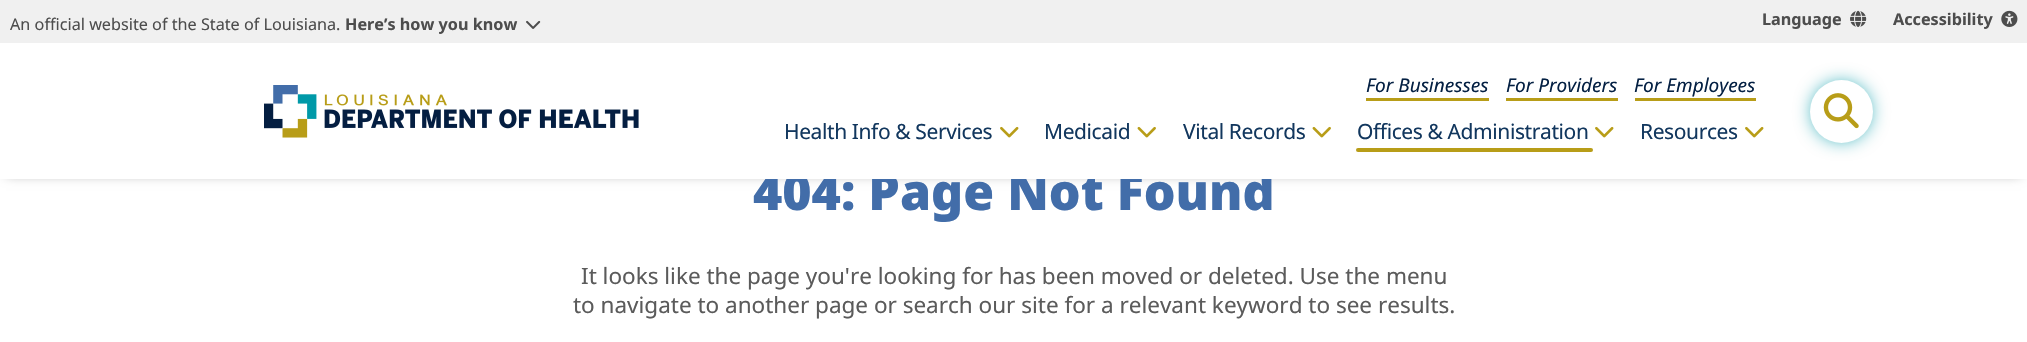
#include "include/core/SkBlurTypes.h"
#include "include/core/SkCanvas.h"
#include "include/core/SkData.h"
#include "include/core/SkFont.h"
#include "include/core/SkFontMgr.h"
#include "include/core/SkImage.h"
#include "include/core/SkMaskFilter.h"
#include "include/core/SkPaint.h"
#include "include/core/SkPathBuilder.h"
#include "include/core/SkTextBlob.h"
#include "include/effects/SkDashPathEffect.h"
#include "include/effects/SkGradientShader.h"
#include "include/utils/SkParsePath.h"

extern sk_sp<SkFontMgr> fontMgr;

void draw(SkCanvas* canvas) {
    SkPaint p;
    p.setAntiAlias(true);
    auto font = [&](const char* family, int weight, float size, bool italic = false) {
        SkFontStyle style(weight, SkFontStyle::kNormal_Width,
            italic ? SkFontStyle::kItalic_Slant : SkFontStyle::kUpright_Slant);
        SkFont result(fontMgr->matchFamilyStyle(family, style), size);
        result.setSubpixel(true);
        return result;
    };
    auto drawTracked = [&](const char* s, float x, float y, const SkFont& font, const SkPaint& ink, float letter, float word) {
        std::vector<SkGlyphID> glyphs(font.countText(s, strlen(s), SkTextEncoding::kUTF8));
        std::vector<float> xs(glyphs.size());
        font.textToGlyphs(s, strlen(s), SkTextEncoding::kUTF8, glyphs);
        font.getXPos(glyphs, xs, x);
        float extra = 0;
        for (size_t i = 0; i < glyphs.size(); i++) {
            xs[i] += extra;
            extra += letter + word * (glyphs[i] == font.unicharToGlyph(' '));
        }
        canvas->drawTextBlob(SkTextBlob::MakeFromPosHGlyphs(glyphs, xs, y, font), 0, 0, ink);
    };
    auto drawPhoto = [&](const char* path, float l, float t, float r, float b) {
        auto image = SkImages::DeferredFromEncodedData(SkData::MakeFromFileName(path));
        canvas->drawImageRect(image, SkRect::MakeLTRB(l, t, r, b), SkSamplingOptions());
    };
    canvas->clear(0xFFFFFFFF);
    p.setColor(0x80000000);
    p.setMaskFilter(SkMaskFilter::MakeBlur(kNormal_SkBlurStyle, 6));
    canvas->drawRect(SkRect::MakeLTRB(6, 6, 2021, 173), p);
    p.setMaskFilter(nullptr);
    auto font1 = font("Noto Sans", 900, 50);
    p.setColor(0xFF426DA9);
    canvas->drawString("404: Page Not Found", 753, 210, font1, p);
    p.setColor(0xFFFFFFFF);
    canvas->drawRect(SkRect::MakeLTRB(0, 43, 2027, 179), p);
    p.setColor(0xFFF0F0F0);
    canvas->drawRect(SkRect::MakeLTRB(0, 0, 2027, 43), p);
    auto font2 = font("Noto Sans", 400, 16.2f);
    p.setColor(0xFF4D4D4D);
    canvas->drawString("An official website of the State of Louisiana.", 10, 30, font2, p);
    auto font3 = font("Noto Sans", 700, 16.2f);
    canvas->drawString("Here’s how you know", 345, 30, font3, p);
    drawPhoto("media/1.png", 526, 20, 541, 29);
    canvas->drawString("Language", 1762, 25, font3, p);
    drawPhoto("media/2.png", 1850, 10, 1867, 27);
    canvas->drawString("Accessibility", 1893, 25, font3, p);
    drawPhoto("media/3.png", 2001, 10, 2018, 27);
    drawPhoto("media/4.png", 264, 85, 639, 138);
    auto font4 = font("Noto Sans", 400, 19, true);
    p.setColor(0xFF042043);
    canvas->drawString("For Businesses", 1366, 92, font4, p);
    p.setColor(0xFFB89D18);
    canvas->drawRect(SkRect::MakeLTRB(1366, 98, 1489, 101), p);
    p.setColor(0xFF042043);
    canvas->drawString("For Providers", 1506, 92, font4, p);
    p.setColor(0xFFB89D18);
    canvas->drawRect(SkRect::MakeLTRB(1506, 98, 1618, 101), p);
    p.setColor(0xFF042043);
    canvas->drawString("For Employees", 1634, 92, font4, p);
    p.setColor(0xFFB89D18);
    canvas->drawRect(SkRect::MakeLTRB(1635, 98, 1756, 101), p);
    auto font5 = font("Noto Sans", 400, 21);
    p.setColor(0xFF12375E);
    drawTracked("Health Info & Services", 784, 139, font5, p, -0.4f, 0);
    drawPhoto("media/5.png", 1000, 126, 1019, 138);
    drawTracked("Medicaid", 1044, 139, font5, p, -0.4f, 0);
    drawPhoto("media/6.png", 1137, 126, 1156, 138);
    drawTracked("Vital Records", 1183, 139, font5, p, -0.4f, 0);
    drawPhoto("media/6.png", 1312, 126, 1331, 138);
    drawTracked("Offices & Administration", 1357, 139, font5, p, -0.4f, 0);
    drawPhoto("media/5.png", 1595, 126, 1614, 138);
    p.setColor(0xFFB89D18);
    canvas->drawRoundRect(SkRect::MakeLTRB(1356, 148, 1593, 152), 2, 2, p);
    p.setColor(0xFF12375E);
    drawTracked("Resources", 1640, 139, font5, p, -0.4f, 0);
    drawPhoto("media/5.png", 1745, 126, 1764, 138);
    p.setColor(0xFF009AA8);
    p.setMaskFilter(SkMaskFilter::MakeBlur(kNormal_SkBlurStyle, 9.5f));
    canvas->drawRoundRect(SkRect::MakeLTRB(1814, 84, 1869, 139), 27.5f, 27.5f, p);
    p.setMaskFilter(nullptr);
    p.setColor(0xFFFFFFFF);
    canvas->drawCircle(1841.5f, 111.5f, 31.5f, p);
    drawPhoto("media/7.png", 1823, 93, 1859, 129);
    auto font6 = font("Noto Sans", 400, 22.5f);
    p.setColor(0xFF5B5B5B);
    canvas->drawString("It looks like the page you're looking for has been moved or deleted. Use the menu", 581, 284, font6, p);
    canvas->drawString("to navigate to another page or search our site for a relevant keyword to see results.", 573, 313, font6, p);
}
